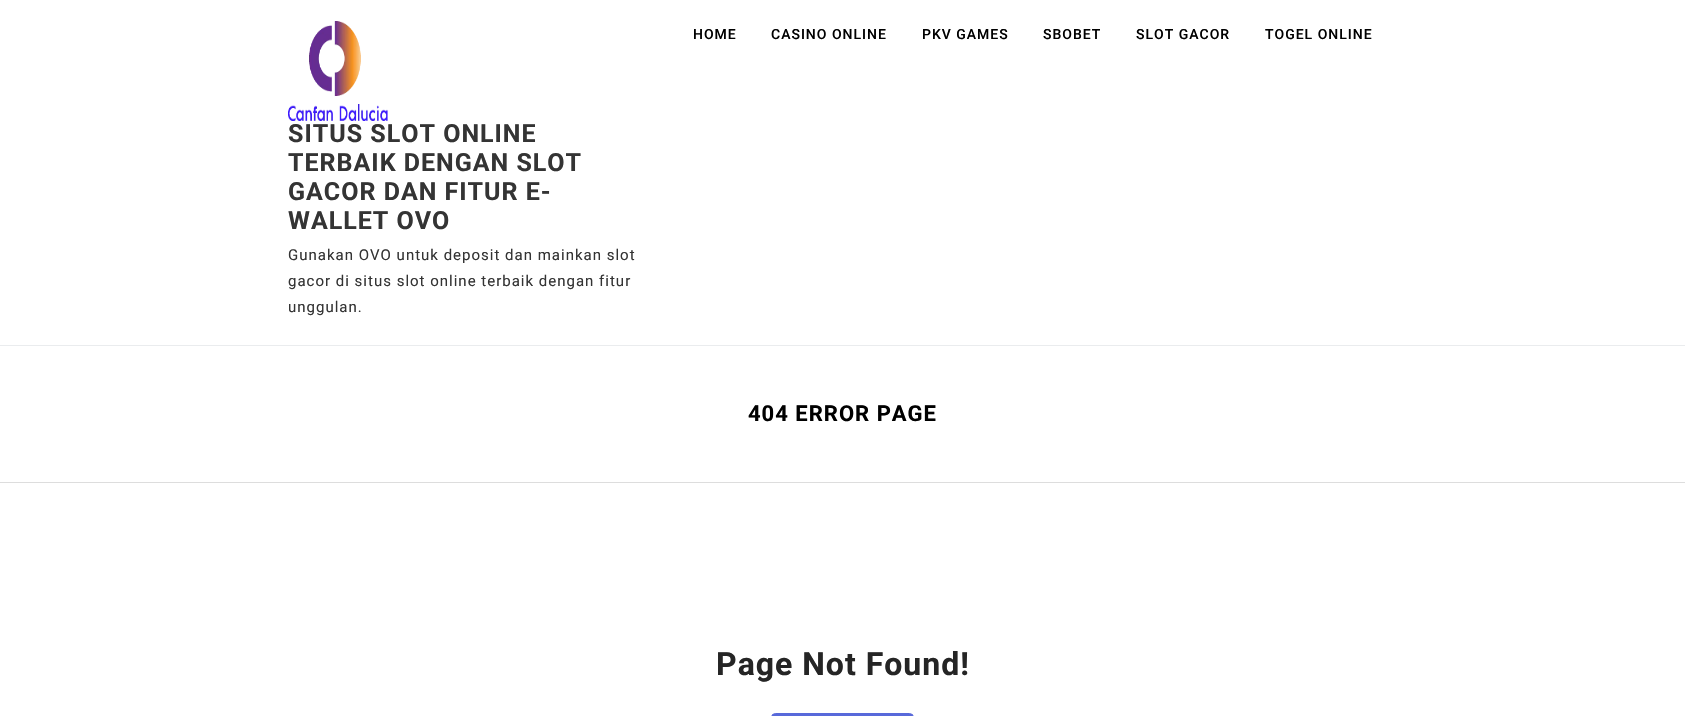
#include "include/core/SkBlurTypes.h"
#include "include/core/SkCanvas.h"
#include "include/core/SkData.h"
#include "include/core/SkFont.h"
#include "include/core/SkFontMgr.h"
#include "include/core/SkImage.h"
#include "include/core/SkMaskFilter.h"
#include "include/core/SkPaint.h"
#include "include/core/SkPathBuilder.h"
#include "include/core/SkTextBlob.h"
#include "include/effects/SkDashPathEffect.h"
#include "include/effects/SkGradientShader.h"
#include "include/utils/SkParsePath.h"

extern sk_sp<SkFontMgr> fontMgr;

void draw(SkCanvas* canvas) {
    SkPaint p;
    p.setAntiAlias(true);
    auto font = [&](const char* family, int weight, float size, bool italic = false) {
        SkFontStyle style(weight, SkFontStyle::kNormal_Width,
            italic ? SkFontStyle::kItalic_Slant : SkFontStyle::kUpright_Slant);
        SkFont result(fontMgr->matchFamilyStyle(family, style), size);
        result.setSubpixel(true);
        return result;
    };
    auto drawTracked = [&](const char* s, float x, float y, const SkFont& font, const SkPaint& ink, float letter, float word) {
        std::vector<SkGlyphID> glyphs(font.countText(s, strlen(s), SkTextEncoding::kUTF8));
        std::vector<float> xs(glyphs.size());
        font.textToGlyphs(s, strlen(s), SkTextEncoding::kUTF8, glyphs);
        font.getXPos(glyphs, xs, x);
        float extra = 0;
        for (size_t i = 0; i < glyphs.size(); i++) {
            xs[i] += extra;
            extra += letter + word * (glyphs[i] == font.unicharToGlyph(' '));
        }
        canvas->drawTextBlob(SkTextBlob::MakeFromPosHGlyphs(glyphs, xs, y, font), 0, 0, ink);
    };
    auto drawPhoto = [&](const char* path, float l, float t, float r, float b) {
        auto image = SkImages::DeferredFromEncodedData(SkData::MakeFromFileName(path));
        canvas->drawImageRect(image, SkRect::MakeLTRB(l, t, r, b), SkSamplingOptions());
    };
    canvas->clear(0xFFFFFFFF);
    p.setColor(0xFFEAECEE);
    canvas->drawRect(SkRect::MakeLTRB(0, 345, 1685, 346), p);
    auto font1 = font("Roboto", 500, 14);
    p.setColor(0xFF000000);
    {
        const struct { const char* s; float x, y; } items[] = {
            {"HOME", 693, 39},
            {"CASINO ONLINE", 771, 39},
            {"PKV GAMES", 922, 39},
            {"SBOBET", 1043, 39},
            {"SLOT GACOR", 1136, 39},
            {"TOGEL ONLINE", 1265, 39},
        };
        for (auto [s, x, y] : items) {
            drawTracked(s, x, y, font1, p, 1, 0);
        }
    }
    drawPhoto("media/1.png", 288, 21, 388, 121);
    auto font2 = font("Roboto", 700, 25);
    p.setColor(0xFF343434);
    {
        const struct { const char* s; float x, y; } items[] = {
            {"SITUS SLOT ONLINE", 288, 142},
            {"TERBAIK DENGAN SLOT", 288, 171},
            {"GACOR DAN FITUR E-", 288, 200},
            {"WALLET OVO", 288, 229},
        };
        for (auto [s, x, y] : items) {
            drawTracked(s, x, y, font2, p, 1, 0);
        }
    }
    auto font3 = font("Roboto", 400, 15);
    {
        const struct { const char* s; float x, y; } items[] = {
            {"Gunakan OVO untuk deposit dan mainkan slot", 288, 260},
            {"gacor di situs slot online terbaik dengan fitur", 288, 286},
            {"unggulan.", 288, 312},
        };
        for (auto [s, x, y] : items) {
            drawTracked(s, x, y, font3, p, 1, 0);
        }
    }
    p.setColor(0xFFDDDDDD);
    canvas->drawRect(SkRect::MakeLTRB(0, 482, 1685, 483), p);
    auto font4 = font("Roboto", 700, 22);
    p.setColor(0xFF000000);
    drawTracked("404 ERROR PAGE", 748, 421, font4, p, 1, 0);
    auto font5 = font("Roboto", 700, 32);
    p.setColor(0xFF252525);
    drawTracked("Page Not Found!", 716, 675, font5, p, 1, 0);
    p.setColor(0xFF5869DA);
    canvas->drawRoundRect(SkRect::MakeLTRB(771.5f, 713.5f, 913.5f, 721.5f), 4.5f, 4.5f, p);
    p.setStyle(SkPaint::kStroke_Style);
    p.setStrokeWidth(1);
    canvas->drawRoundRect(SkRect::MakeLTRB(771.5f, 713.5f, 913.5f, 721.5f), 4.5f, 4.5f, p);
}
